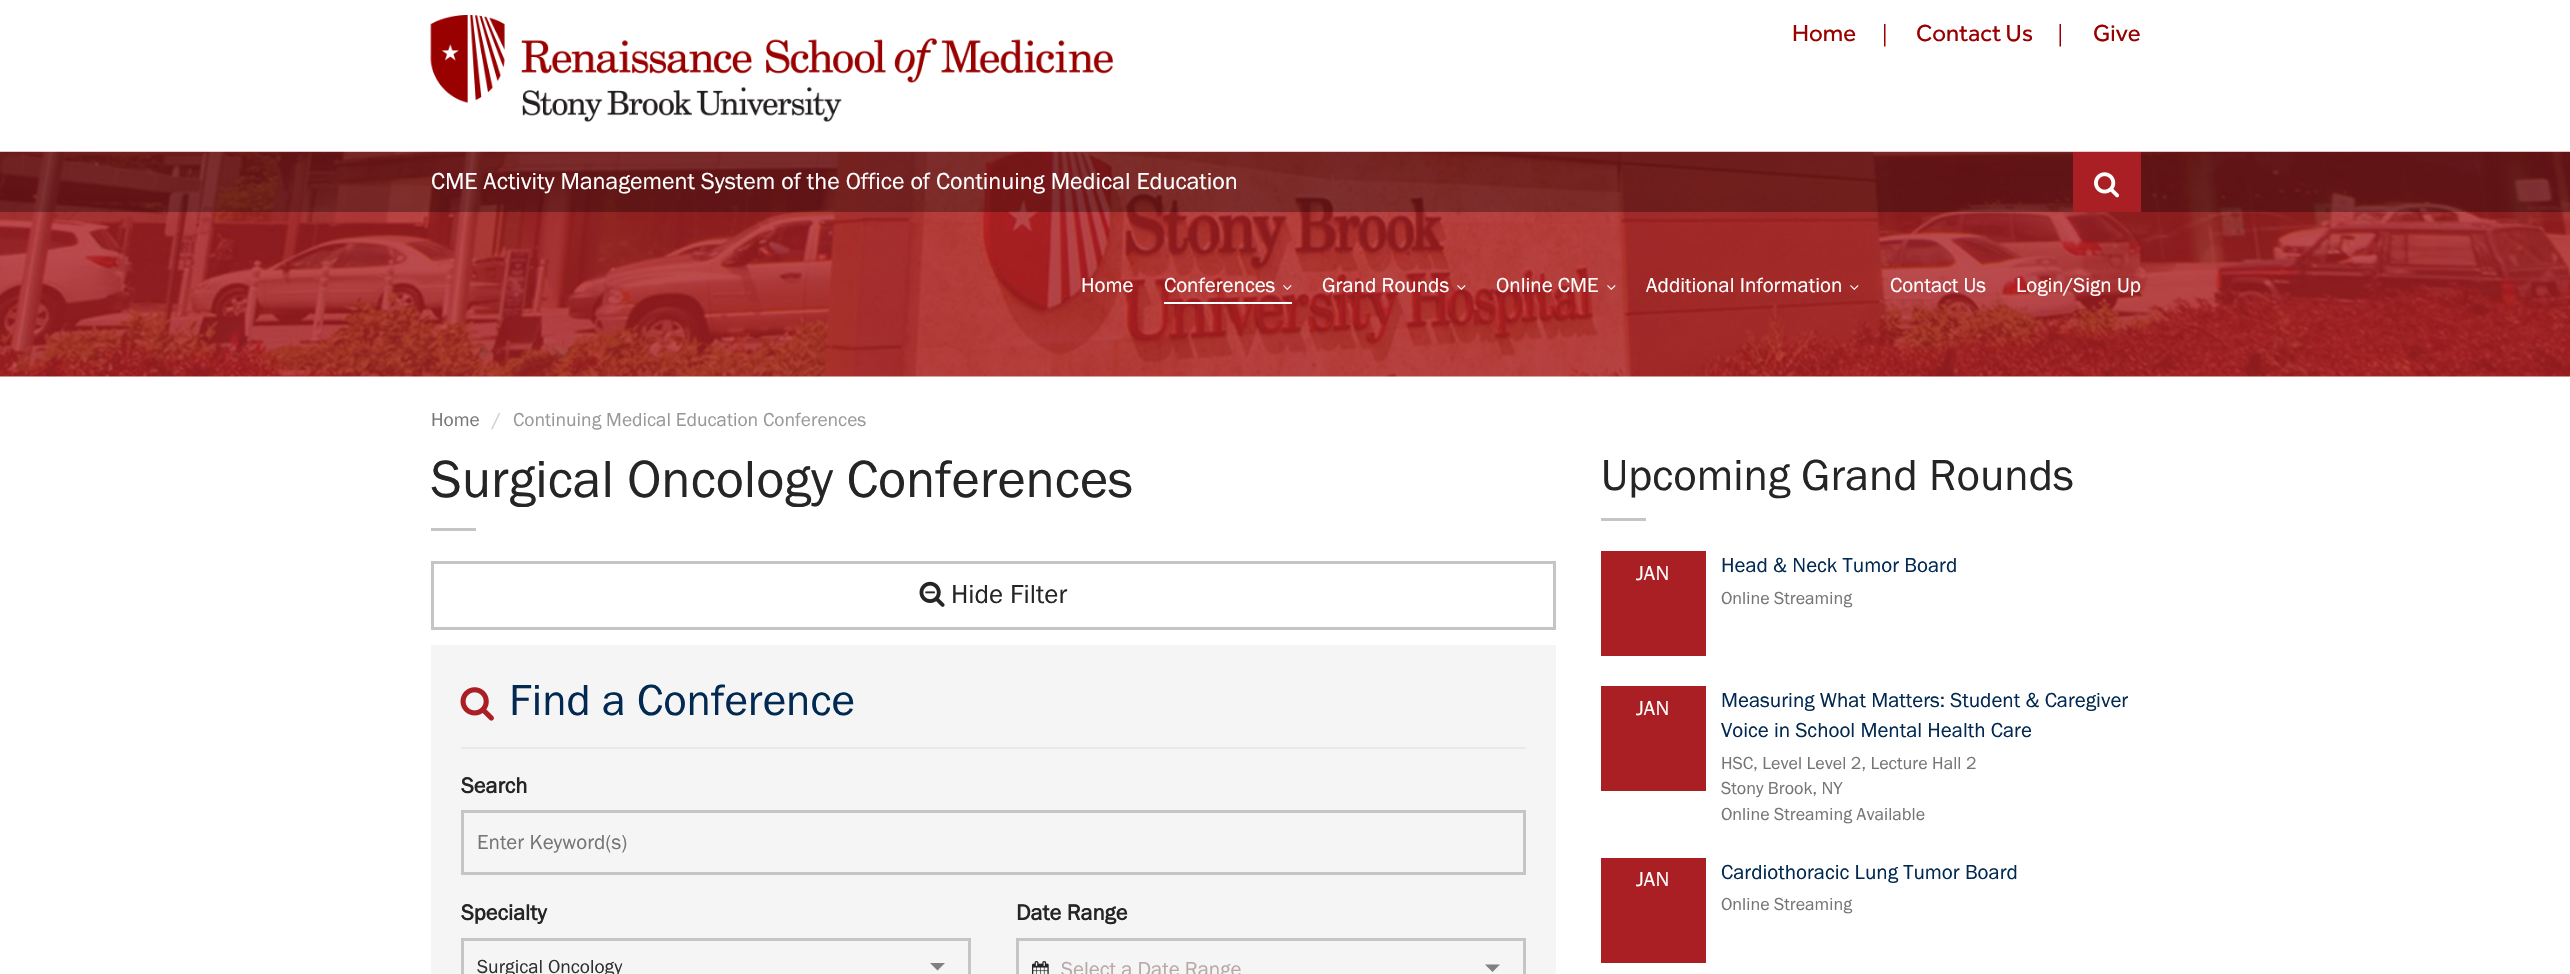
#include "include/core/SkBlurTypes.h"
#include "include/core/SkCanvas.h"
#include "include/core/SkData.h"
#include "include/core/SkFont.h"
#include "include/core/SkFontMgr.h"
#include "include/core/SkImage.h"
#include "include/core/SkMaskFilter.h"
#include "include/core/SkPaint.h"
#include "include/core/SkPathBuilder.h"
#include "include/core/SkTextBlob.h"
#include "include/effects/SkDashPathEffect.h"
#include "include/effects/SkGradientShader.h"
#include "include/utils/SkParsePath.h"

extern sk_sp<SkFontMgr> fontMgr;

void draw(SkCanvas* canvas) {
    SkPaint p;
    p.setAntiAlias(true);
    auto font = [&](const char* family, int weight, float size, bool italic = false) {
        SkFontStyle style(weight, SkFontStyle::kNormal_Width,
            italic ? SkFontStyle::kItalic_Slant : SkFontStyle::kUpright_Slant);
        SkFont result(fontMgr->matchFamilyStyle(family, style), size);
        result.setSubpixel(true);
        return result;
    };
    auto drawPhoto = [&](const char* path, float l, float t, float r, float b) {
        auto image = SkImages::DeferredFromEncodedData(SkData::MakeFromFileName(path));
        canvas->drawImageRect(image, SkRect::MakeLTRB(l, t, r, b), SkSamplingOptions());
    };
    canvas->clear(0xFFFFFFFF);
    drawPhoto("media/1.png", 430, 15, 1113, 122);
    auto font1 = font("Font", 400, 24);
    p.setColor(0xFF990000);
    canvas->drawString("Home", 1792, 41, font1, p);
    drawPhoto("media/2.png", 1884, 24, 1886, 47);
    canvas->drawString("Contact Us", 1916, 41, font1, p);
    drawPhoto("media/3.png", 2059, 24, 2061, 47);
    canvas->drawString("Give", 2093, 41, font1, p);
    drawPhoto("media/4.png", 0, 151, 2570, 377);
    p.setColor(0x4F000000);
    canvas->drawRect(SkRect::MakeLTRB(0, 152, 2570, 212), p);
    auto font2 = font("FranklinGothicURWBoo", 400, 24);
    p.setColor(0xFFFFFFFF);
    canvas->drawString("CME Activity Management System of the Office of Continuing Medical Education", 431, 189, font2, p);
    p.setColor(0xFFAA1F23);
    canvas->drawRect(SkRect::MakeLTRB(2073, 152, 2141, 212), p);
    drawPhoto("media/5.png", 2094, 172, 2120, 198);
    auto font3 = font("FranklinGothicURWBoo", 400, 21);
    p.setColor(0xFFFFFFFF);
    canvas->drawString("Home", 1081, 292, font3, p);
    canvas->drawRect(SkRect::MakeLTRB(1164, 302, 1292, 304), p);
    canvas->drawString("Conferences", 1164, 292, font3, p);
    drawPhoto("media/6.png", 1283, 285, 1292, 290);
    canvas->drawString("Grand Rounds", 1322, 292, font3, p);
    drawPhoto("media/7.png", 1457, 285, 1466, 290);
    canvas->drawString("Online CME", 1496, 292, font3, p);
    drawPhoto("media/8.png", 1607, 285, 1616, 290);
    canvas->drawString("Additional Information", 1646, 292, font3, p);
    drawPhoto("media/9.png", 1850, 285, 1859, 290);
    canvas->drawString("Contact Us", 1890, 292, font3, p);
    canvas->drawString("Login/Sign Up", 2016, 292, font3, p);
    auto font4 = font("FranklinGothicURWBoo", 400, 19.5f);
    p.setColor(0xFF767676);
    canvas->drawString("Home", 431, 426, font4, p);
    p.setColor(0xFFCCCCCC);
    canvas->drawString("/", 492, 426, font4, p);
    p.setColor(0xFF999999);
    canvas->drawString("Continuing Medical Education Conferences", 513, 426, font4, p);
    auto font5 = font("FranklinGothicURWBoo", 400, 54);
    p.setColor(0xFF252525);
    canvas->drawString("Surgical Oncology Conferences", 431, 497, font5, p);
    p.setColor(0xFFC5C5C5);
    canvas->drawRect(SkRect::MakeLTRB(431, 528, 476, 531), p);
    p.setStyle(SkPaint::kStroke_Style);
    p.setStrokeWidth(3);
    canvas->drawRect(SkRect::MakeLTRB(432.5f, 562.5f, 1554.5f, 628.5f), p);
    drawPhoto("media/10.png", 919, 581, 945, 607);
    auto font6 = font("FranklinGothicURWBoo", 400, 27);
    p.setStyle(SkPaint::kFill_Style);
    p.setColor(0xFF252525);
    canvas->drawString("Hide Filter", 951, 603, font6, p);
    p.setColor(0xFFF5F5F5);
    canvas->drawRect(SkRect::MakeLTRB(431, 645, 1556, 974), p);
    p.setColor(0xFFE9E9E9);
    canvas->drawRect(SkRect::MakeLTRB(461, 747, 1526, 749), p);
    drawPhoto("media/11.png", 460, 687, 494, 721);
    auto font7 = font("FranklinGothicURWBoo", 400, 45);
    p.setColor(0xFF012951);
    canvas->drawString("Find a Conference", 509, 715, font7, p);
    auto font8 = font("FranklinGothicURWBoo", 700, 22.5f);
    p.setColor(0xFF252525);
    canvas->drawString("Search", 461, 793, font8, p);
    p.setStyle(SkPaint::kStroke_Style);
    p.setColor(0xFFC5C5C5);
    canvas->drawRect(SkRect::MakeLTRB(462.5f, 811.5f, 1524.5f, 873.5f), p);
    p.setStyle(SkPaint::kFill_Style);
    p.setColor(0xFF767676);
    canvas->drawString("Enter Keyword(s)", 477, 849, font3, p);
    p.setColor(0xFF252525);
    canvas->drawString("Specialty", 461, 920, font8, p);
    p.setStyle(SkPaint::kStroke_Style);
    p.setColor(0xFFC5C5C5);
    canvas->drawRect(SkRect::MakeLTRB(462.5f, 939.5f, 969.5f, 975.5f), p);
    p.setStyle(SkPaint::kFill_Style);
    p.setColor(0xFF303030);
    canvas->drawString("Surgical Oncology", 477, 973, font4, p);
    p.setColor(0xFF808080);
    canvas->drawPath(SkPathBuilder().moveTo(930, 963).lineTo(945, 963).lineTo(937.5f, 970.5f).close().detach(), p);
    p.setColor(0xFF252525);
    canvas->drawString("Date Range", 1016, 920, font8, p);
    p.setStyle(SkPaint::kStroke_Style);
    p.setColor(0xFFC5C5C5);
    canvas->drawRect(SkRect::MakeLTRB(1017.5f, 939.5f, 1524.5f, 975.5f), p);
    drawPhoto("media/12.png", 1032, 961, 1049, 974);
    p.setStyle(SkPaint::kFill_Style);
    p.setColor(0xFFB9A9A9);
    canvas->drawString("Select a Date Range", 1061, 976, font3, p);
    p.setColor(0xFF808080);
    canvas->drawPath(SkPathBuilder().moveTo(1485, 964.5f).lineTo(1500, 964.5f).lineTo(1492.5f, 972).close().detach(), p);
    p.setColor(0xFF252525);
    canvas->drawString("Upcoming Grand Rounds", 1601, 490, font7, p);
    p.setColor(0xFFC5C5C5);
    canvas->drawRect(SkRect::MakeLTRB(1601, 518, 1646, 521), p);
    p.setColor(0xFFAA1F23);
    canvas->drawRect(SkRect::MakeLTRB(1601, 551, 1706, 656), p);
    p.setColor(0xFFFFFFFF);
    canvas->drawString("JAN", 1636, 580, font3, p);
    p.setColor(0xFF012951);
    canvas->drawString("Head & Neck Tumor Board", 1721, 572, font3, p);
    auto font9 = font("FranklinGothicURWBoo", 400, 18);
    p.setColor(0xFF767676);
    canvas->drawString("Online Streaming", 1721, 604, font9, p);
    p.setColor(0xFFAA1F23);
    canvas->drawRect(SkRect::MakeLTRB(1601, 686, 1706, 791), p);
    p.setColor(0xFFFFFFFF);
    canvas->drawString("JAN", 1636, 715, font3, p);
    p.setColor(0xFF012951);
    canvas->drawString("Measuring What Matters: Student & Caregiver", 1721, 707, font3, p);
    canvas->drawString("Voice in School Mental Health Care", 1721, 737, font3, p);
    p.setColor(0xFF767676);
    {
        const struct { const char* s; float x, y; } items[] = {
            {"HSC, Level Level 2, Lecture Hall 2", 1721, 769},
            {"Stony Brook, NY", 1721, 794},
            {"Online Streaming Available", 1721, 820},
        };
        for (auto [s, x, y] : items) {
            canvas->drawString(s, x, y, font9, p);
        }
    }
    p.setColor(0xFFAA1F23);
    canvas->drawRect(SkRect::MakeLTRB(1601, 858, 1706, 963), p);
    p.setColor(0xFFFFFFFF);
    canvas->drawString("JAN", 1636, 886, font3, p);
    p.setColor(0xFF012951);
    canvas->drawString("Cardiothoracic Lung Tumor Board", 1721, 879, font3, p);
    p.setColor(0xFF767676);
    canvas->drawString("Online Streaming", 1721, 910, font9, p);
}
